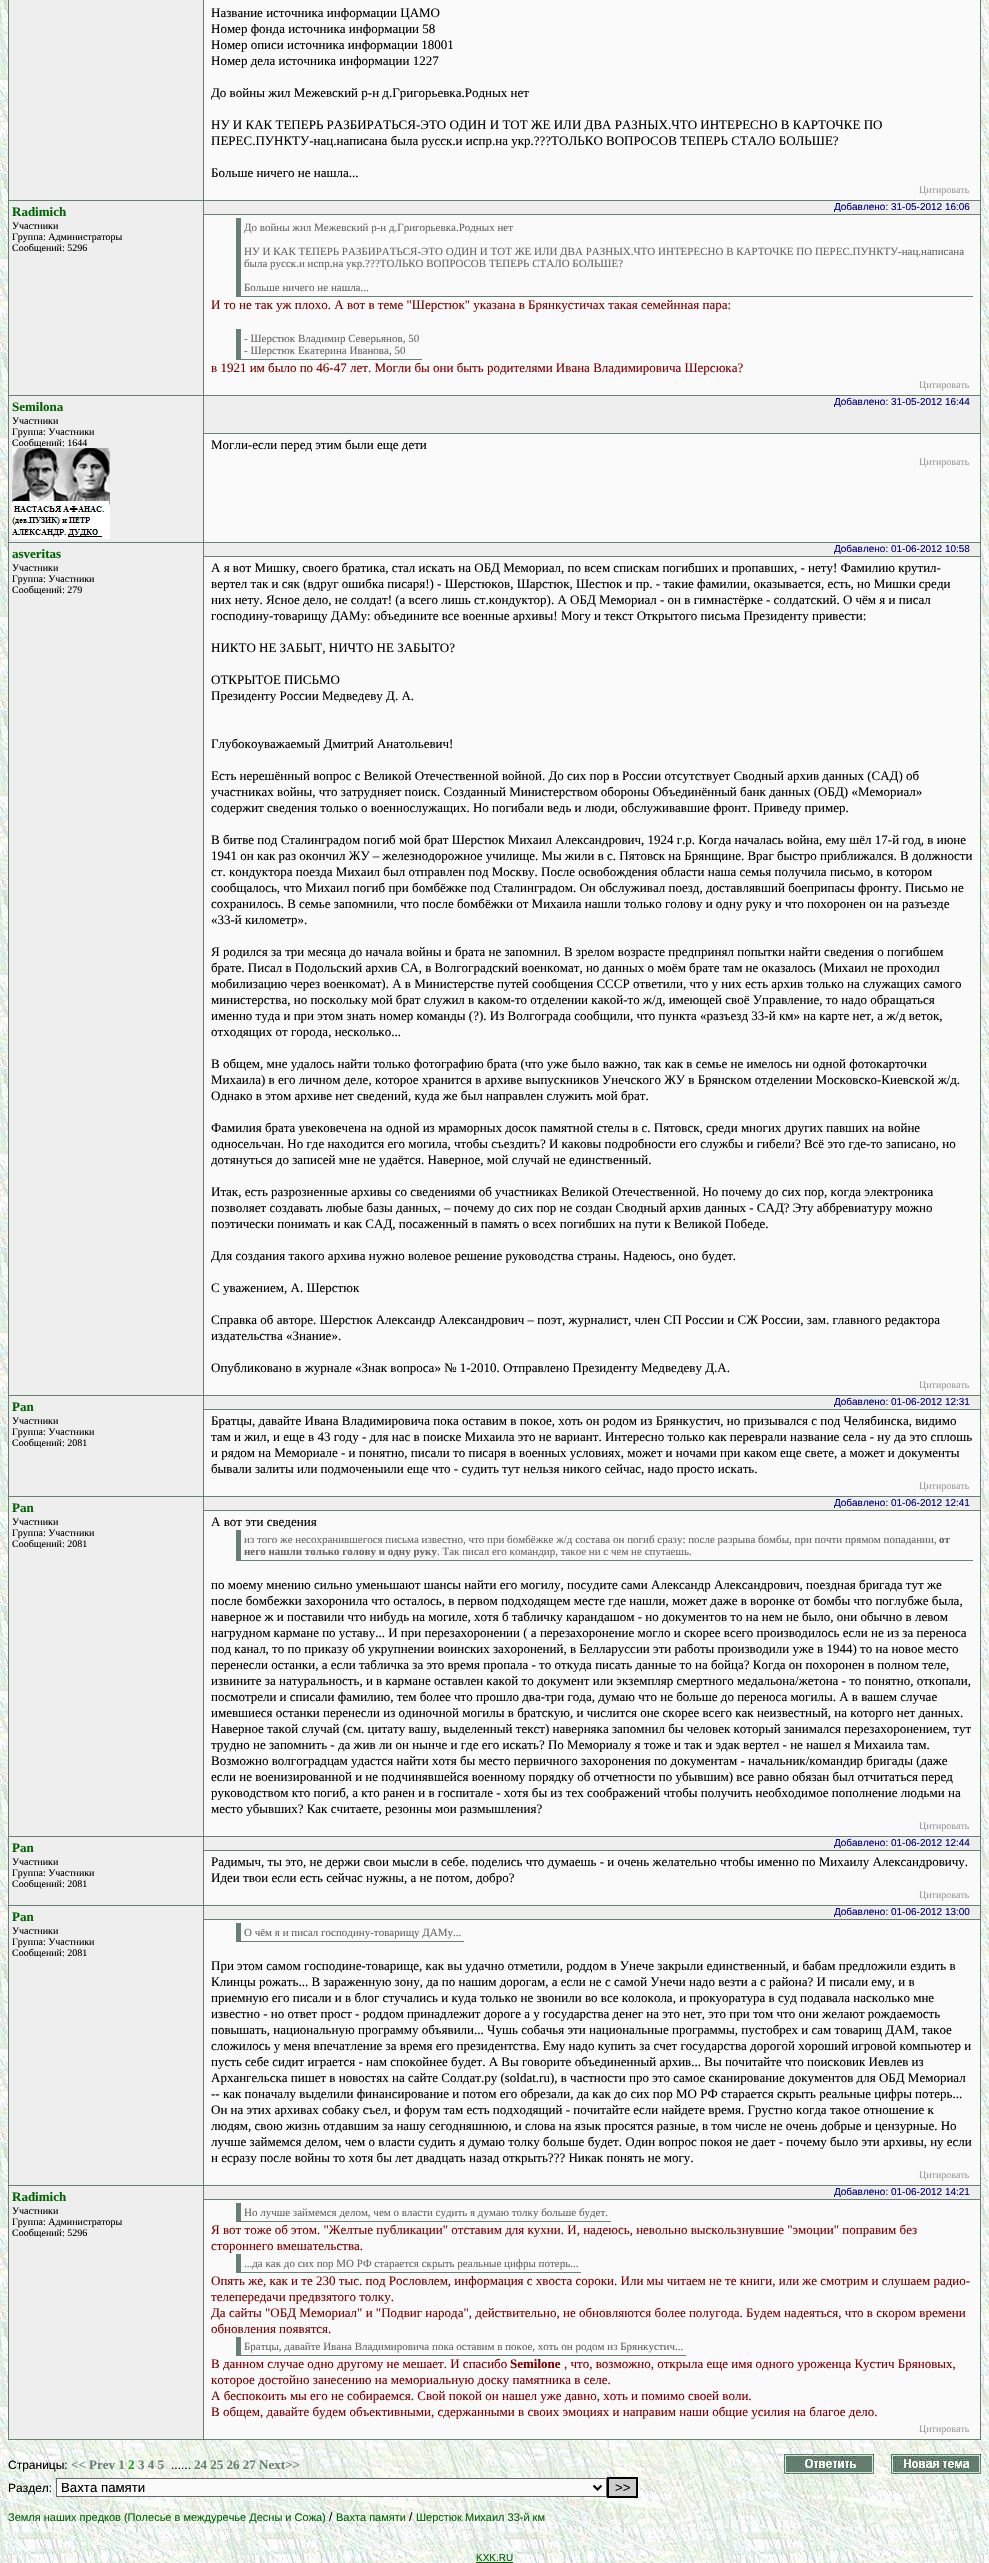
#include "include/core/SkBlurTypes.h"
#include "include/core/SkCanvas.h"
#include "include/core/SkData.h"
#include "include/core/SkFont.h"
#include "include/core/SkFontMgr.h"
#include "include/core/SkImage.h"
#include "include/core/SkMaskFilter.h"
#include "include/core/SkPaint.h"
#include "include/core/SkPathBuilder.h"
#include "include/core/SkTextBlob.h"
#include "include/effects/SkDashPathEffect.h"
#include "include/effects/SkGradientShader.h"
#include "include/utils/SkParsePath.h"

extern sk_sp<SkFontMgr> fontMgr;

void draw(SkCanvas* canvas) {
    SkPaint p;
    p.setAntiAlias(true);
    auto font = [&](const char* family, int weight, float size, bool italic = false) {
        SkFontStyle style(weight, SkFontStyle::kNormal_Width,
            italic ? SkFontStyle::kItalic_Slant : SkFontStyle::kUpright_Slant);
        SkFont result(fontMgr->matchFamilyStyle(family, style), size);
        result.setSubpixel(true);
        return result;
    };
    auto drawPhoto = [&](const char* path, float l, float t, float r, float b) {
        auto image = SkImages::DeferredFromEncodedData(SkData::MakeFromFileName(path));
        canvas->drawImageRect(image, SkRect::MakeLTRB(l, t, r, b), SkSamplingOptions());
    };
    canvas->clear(0xFFFFFFFF);
    drawPhoto("media/1.png", 0, 0, 989, 2563);
    {
        const struct { float l, t, r, b; SkColor color; } items[] = {
            {8, 0, 981, 2440, 0xFF668172},
            {9, 0, 203, 200, 0xFFEEEEEE},
            {204, 0, 980, 200, 0xFFFAFAFA},
        };
        for (auto [l, t, r, b, color] : items) {
            p.setColor(color);
            canvas->drawRect(SkRect::MakeLTRB(l, t, r, b), p);
        }
    }
    auto font1 = font("Liberation Serif", 400, 13);
    p.setColor(0xFF000000);
    {
        const struct { const char* s; float x, y; } items[] = {
            {"Название источника информации ЦАМО", 211, 17},
            {"Номер фонда источника информации 58", 211, 33},
            {"Номер описи источника информации 18001", 211, 49},
            {"Номер дела источника информации 1227", 211, 65},
            {"До войны жил Межевский р-н д.Григорьевка.Родных нет", 211, 97},
            {"НУ И КАК ТЕПЕРЬ РАЗБИРАТЬСЯ-ЭТО ОДИН И ТОТ ЖЕ ИЛИ ДВА РАЗНЫХ.ЧТО ИНТЕРЕСНО В КАРТОЧКЕ ПО", 211, 129},
            {"ПЕРЕС.ПУНКТУ-нац.написана была русск.и испр.на укр.?\077?ТОЛЬКО ВОПРОСОВ ТЕПЕРЬ СТАЛО БОЛЬШЕ?", 211, 145},
            {"Больше ничего не нашла...", 211, 177},
        };
        for (auto [s, x, y] : items) {
            canvas->drawString(s, x, y, font1, p);
        }
    }
    auto font2 = font("Liberation Serif", 400, 10);
    p.setColor(0xFF999999);
    canvas->drawString("Цитировать", 919, 193, font2, p);
    p.setColor(0xFFEEEEEE);
    canvas->drawRect(SkRect::MakeLTRB(9, 201, 203, 395), p);
    auto font3 = font("Liberation Serif", 700, 13);
    p.setColor(0xFF006400);
    canvas->drawString("Radimich", 12, 216, font3, p);
    p.setColor(0xFF000000);
    {
        const struct { const char* s; float x, y; } items[] = {
            {"Участники", 12, 229},
            {"Группа: Администраторы", 12, 240},
            {"Сообщений: 5296", 12, 251},
        };
        for (auto [s, x, y] : items) {
            canvas->drawString(s, x, y, font2, p);
        }
    }
    p.setColor(0xFFEEEEEE);
    canvas->drawRect(SkRect::MakeLTRB(204, 201, 980, 214), p);
    auto font4 = font("Liberation Sans", 400, 10);
    p.setColor(0xFF000080);
    canvas->drawString("Добавлено: 31-05-2012 16:06", 834, 210, font4, p);
    {
        const struct { float l, t, r, b; SkColor color; } items[] = {
            {204, 215, 980, 395, 0xFFFAFAFA},
            {236, 296, 973, 297, 0xFF668172},
            {236, 218, 241, 297, 0xFF668172},
        };
        for (auto [l, t, r, b, color] : items) {
            p.setColor(color);
            canvas->drawRect(SkRect::MakeLTRB(l, t, r, b), p);
        }
    }
    auto font5 = font("Liberation Serif", 400, 11);
    p.setColor(0xFF666666);
    {
        const struct { const char* s; float x, y; } items[] = {
            {"До войны жил Межевский р-н д.Григорьевка.Родных нет", 244, 231},
            {"НУ И КАК ТЕПЕРЬ РАЗБИРАТЬСЯ-ЭТО ОДИН И ТОТ ЖЕ ИЛИ ДВА РАЗНЫХ.ЧТО ИНТЕРЕСНО В КАРТОЧКЕ ПО ПЕРЕС.ПУНКТУ-нац.написана", 244, 255},
            {"была русск.и испр.на укр.?\077?ТОЛЬКО ВОПРОСОВ ТЕПЕРЬ СТАЛО БОЛЬШЕ?", 244, 267},
            {"Больше ничего не нашла...", 244, 291},
        };
        for (auto [s, x, y] : items) {
            canvas->drawString(s, x, y, font5, p);
        }
    }
    p.setColor(0xFF800000);
    canvas->drawString("И то не так уж плохо. А вот в теме \"Шерстюк\" указана в Брянкустичах такая семейнная пара:", 211, 309, font1, p);
    p.setColor(0xFF668172);
    canvas->drawRect(SkRect::MakeLTRB(236, 359, 422, 360), p);
    canvas->drawRect(SkRect::MakeLTRB(236, 329, 241, 360), p);
    p.setColor(0xFF666666);
    canvas->drawString("- Шерстюк Владимир Северьянов, 50", 244, 342, font5, p);
    canvas->drawString("- Шерстюк Екатерина Иванова, 50", 244, 354, font5, p);
    p.setColor(0xFF800000);
    canvas->drawString("в 1921 им было по 46-47 лет. Могли бы они быть родителями Ивана Владимировича Шерсюка?", 211, 372, font1, p);
    p.setColor(0xFF999999);
    canvas->drawString("Цитировать", 919, 388, font2, p);
    p.setColor(0xFFEEEEEE);
    canvas->drawRect(SkRect::MakeLTRB(9, 396, 203, 542), p);
    p.setColor(0xFF006400);
    canvas->drawString("Semilona", 12, 411, font3, p);
    p.setColor(0xFF000000);
    {
        const struct { const char* s; float x, y; } items[] = {
            {"Участники", 12, 424},
            {"Группа: Участники", 12, 435},
            {"Сообщений: 1644", 12, 446},
        };
        for (auto [s, x, y] : items) {
            canvas->drawString(s, x, y, font2, p);
        }
    }
    drawPhoto("media/2.png", 12, 448, 110, 539);
    p.setColor(0xFFEEEEEE);
    canvas->drawRect(SkRect::MakeLTRB(204, 396, 980, 433), p);
    p.setColor(0xFF000080);
    canvas->drawString("Добавлено: 31-05-2012 16:44", 834, 405, font4, p);
    p.setColor(0xFFFAFAFA);
    canvas->drawRect(SkRect::MakeLTRB(204, 434, 980, 542), p);
    p.setColor(0xFF000000);
    canvas->drawString("Могли-если перед этим были еще дети", 211, 449, font1, p);
    p.setColor(0xFF999999);
    canvas->drawString("Цитировать", 919, 465, font2, p);
    p.setColor(0xFFEEEEEE);
    canvas->drawRect(SkRect::MakeLTRB(9, 543, 203, 1395), p);
    p.setColor(0xFF006400);
    canvas->drawString("asveritas", 12, 558, font3, p);
    p.setColor(0xFF000000);
    {
        const struct { const char* s; float x, y; } items[] = {
            {"Участники", 12, 571},
            {"Группа: Участники", 12, 582},
            {"Сообщений: 279", 12, 593},
        };
        for (auto [s, x, y] : items) {
            canvas->drawString(s, x, y, font2, p);
        }
    }
    p.setColor(0xFFEEEEEE);
    canvas->drawRect(SkRect::MakeLTRB(204, 543, 980, 556), p);
    p.setColor(0xFF000080);
    canvas->drawString("Добавлено: 01-06-2012 10:58", 834, 552, font4, p);
    p.setColor(0xFFFAFAFA);
    canvas->drawRect(SkRect::MakeLTRB(204, 557, 980, 1395), p);
    p.setColor(0xFF000000);
    {
        const struct { const char* s; float x, y; } items[] = {
            {"А я вот Мишку, своего братика, стал искать на ОБД Мемориал, по всем спискам погибших и пропавших, - нету! Фамилию крутил-", 211, 572},
            {"вертел так и сяк (вдруг ошибка писаря!) - Шерстюков, Шарстюк, Шестюк и пр. - такие фамилии, оказывается, есть, но Мишки среди", 211, 588},
            {"них нету. Ясное дело, не солдат! (а всего лишь ст.кондуктор). А ОБД Мемориал - он в гимнастёрке - солдатский. О чём я и писал", 211, 604},
            {"господину-товарищу ДАМу: объедините все военные архивы! Могу и текст Открытого письма Президенту привести:", 211, 620},
            {"НИКТО НЕ ЗАБЫТ, НИЧТО НЕ ЗАБЫТО?", 211, 652},
            {"ОТКРЫТОЕ ПИСЬМО", 211, 684},
            {"Президенту России Медведеву Д. А.", 211, 700},
            {"Глубокоуважаемый Дмитрий Анатольевич!", 211, 748},
            {"Есть нерешённый вопрос с Великой Отечественной войной. До сих пор в России отсутствует Cводный архив данных (САД) об", 211, 780},
            {"участниках войны, что затрудняет поиск. Созданный Министерством обороны Объединённый банк данных (ОБД) «Мемориал»", 211, 796},
            {"содержит сведения только о военнослужащих. Но погибали ведь и люди, обслуживавшие фронт. Приведу пример.", 211, 812},
            {"В битве под Сталинградом погиб мой брат Шерстюк Михаил Александрович, 1924 г.р. Когда началась война, ему шёл 17-й год, в июне", 211, 844},
            {"1941 он как раз окончил ЖУ – железнодорожное училище. Мы жили в с. Пятовск на Брянщине. Враг быстро приближался. В должности", 211, 860},
            {"ст. кондуктора поезда Михаил был отправлен под Москву. После освобождения области наша семья получила письмо, в котором", 211, 876},
            {"сообщалось, что Михаил погиб при бомбёжке под Сталинградом. Он обслуживал поезд, доставлявший боеприпасы фронту. Письмо не", 211, 892},
            {"сохранилось. В семье запомнили, что после бомбёжки от Михаила нашли только голову и одну руку и что похоронен он на разъезде", 211, 908},
            {"«33-й километр».", 211, 924},
            {"Я родился за три месяца до начала войны и брата не запомнил. В зрелом возрасте предпринял попытки найти сведения о погибшем", 211, 956},
            {"брате. Писал в Подольский архив СА, в Волгоградский военкомат, но данных о моём брате там не оказалось (Михаил не проходил", 211, 972},
            {"мобилизацию через военкомат). А в Министерстве путей сообщения СССР ответили, что у них есть архив только на служащих самого", 211, 988},
            {"министерства, но поскольку мой брат служил в каком-то отделении какой-то ж/д, имеющей своё Управление, то надо обращаться", 211, 1004},
            {"именно туда и при этом знать номер команды (?). Из Волгограда сообщили, что пункта «разъезд 33-й км» на карте нет, а ж/д веток,", 211, 1020},
            {"отходящих от города, несколько...", 211, 1036},
            {"В общем, мне удалось найти только фотографию брата (что уже было важно, так как в семье не имелось ни одной фотокарточки", 211, 1068},
            {"Михаила) в его личном деле, которое хранится в архиве выпускников Унечского ЖУ в Брянском отделении Московско-Киевской ж/д.", 211, 1084},
            {"Однако в этом архиве нет сведений, куда же был направлен служить мой брат.", 211, 1100},
            {"Фамилия брата увековечена на одной из мраморных досок памятной стелы в с. Пятовск, среди многих других павших на войне", 211, 1132},
            {"односельчан. Но где находится его могила, чтобы съездить? И каковы подробности его службы и гибели? Всё это где-то записано, но", 211, 1148},
            {"дотянуться до записей мне не удаётся. Наверное, мой случай не единственный.", 211, 1164},
            {"Итак, есть разрозненные архивы со сведениями об участниках Великой Отечественной. Но почему до сих пор, когда электроника", 211, 1196},
            {"позволяет создавать любые базы данных, – почему до сих пор не создан Сводный архив данных - САД? Эту аббревиатуру можно", 211, 1212},
            {"поэтически понимать и как САД, посаженный в память о всех погибших на пути к Великой Победе.", 211, 1228},
            {"Для создания такого архива нужно волевое решение руководства страны. Надеюсь, оно будет.", 211, 1260},
            {"С уважением, А. Шерстюк", 211, 1292},
            {"Справка об авторе. Шерстюк Александр Александрович – поэт, журналист, член СП России и СЖ России, зам. главного редактора", 211, 1324},
            {"издательства «Знание».", 211, 1340},
            {"Опубликовано в журнале «Знак вопроса» № 1-2010. Отправлено Президенту Медведеву Д.А.", 211, 1372},
        };
        for (auto [s, x, y] : items) {
            canvas->drawString(s, x, y, font1, p);
        }
    }
    p.setColor(0xFF999999);
    canvas->drawString("Цитировать", 919, 1388, font2, p);
    p.setColor(0xFFEEEEEE);
    canvas->drawRect(SkRect::MakeLTRB(9, 1396, 203, 1496), p);
    p.setColor(0xFF006400);
    canvas->drawString("Pan", 12, 1411, font3, p);
    p.setColor(0xFF000000);
    {
        const struct { const char* s; float x, y; } items[] = {
            {"Участники", 12, 1424},
            {"Группа: Участники", 12, 1435},
            {"Сообщений: 2081", 12, 1446},
        };
        for (auto [s, x, y] : items) {
            canvas->drawString(s, x, y, font2, p);
        }
    }
    p.setColor(0xFFEEEEEE);
    canvas->drawRect(SkRect::MakeLTRB(204, 1396, 980, 1409), p);
    p.setColor(0xFF000080);
    canvas->drawString("Добавлено: 01-06-2012 12:31", 834, 1405, font4, p);
    p.setColor(0xFFFAFAFA);
    canvas->drawRect(SkRect::MakeLTRB(204, 1410, 980, 1496), p);
    p.setColor(0xFF000000);
    {
        const struct { const char* s; float x, y; } items[] = {
            {"Братцы, давайте Ивана Владимировича пока оставим в покое, хоть он родом из Брянкустич, но призывался с под Челябинска, видимо", 211, 1425},
            {"там и жил, и еще в 43 году - для нас в поиске Михаила это не вариант. Интересно только как переврали название села - ну да это сплошь", 211, 1441},
            {"и рядом на Мемориале - и понятно, писали то писаря в военных условиях, может и ночами при каком еще свете, а может и документы", 211, 1457},
            {"бывали залиты или подмоченыили еще что - судить тут нельзя никого сейчас, надо просто искать.", 211, 1473},
        };
        for (auto [s, x, y] : items) {
            canvas->drawString(s, x, y, font1, p);
        }
    }
    p.setColor(0xFF999999);
    canvas->drawString("Цитировать", 919, 1489, font2, p);
    p.setColor(0xFFEEEEEE);
    canvas->drawRect(SkRect::MakeLTRB(9, 1497, 203, 1836), p);
    p.setColor(0xFF006400);
    canvas->drawString("Pan", 12, 1512, font3, p);
    p.setColor(0xFF000000);
    {
        const struct { const char* s; float x, y; } items[] = {
            {"Участники", 12, 1525},
            {"Группа: Участники", 12, 1536},
            {"Сообщений: 2081", 12, 1547},
        };
        for (auto [s, x, y] : items) {
            canvas->drawString(s, x, y, font2, p);
        }
    }
    p.setColor(0xFFEEEEEE);
    canvas->drawRect(SkRect::MakeLTRB(204, 1497, 980, 1510), p);
    p.setColor(0xFF000080);
    canvas->drawString("Добавлено: 01-06-2012 12:41", 834, 1506, font4, p);
    p.setColor(0xFFFAFAFA);
    canvas->drawRect(SkRect::MakeLTRB(204, 1511, 980, 1836), p);
    p.setColor(0xFF000000);
    canvas->drawString("А вот эти сведения", 211, 1526, font1, p);
    p.setColor(0xFF668172);
    canvas->drawRect(SkRect::MakeLTRB(236, 1560, 973, 1561), p);
    canvas->drawRect(SkRect::MakeLTRB(236, 1530, 241, 1561), p);
    p.setColor(0xFF666666);
    canvas->drawString("из того же несохранившегося письма известно, что при бомбёжке ж/д состава он погиб сразу: после разрыва бомбы, при почти прямом попадании,", 244, 1543, font5, p);
    auto font6 = font("Liberation Serif", 700, 11);
    canvas->drawString("от", 939, 1543, font6, p);
    canvas->drawString("него нашли только голову и одну руку", 244, 1555, font6, p);
    canvas->drawString(". Так писал его командир, такое ни с чем не спутаешь.", 437, 1555, font5, p);
    p.setColor(0xFF000000);
    {
        const struct { const char* s; float x, y; } items[] = {
            {"по моему мнению сильно уменьшают шансы найти его могилу, посудите сами Александр Александрович, поездная бригада тут же", 211, 1589},
            {"после бомбежки захоронила что осталось, в первом подходящем месте где нашли, может даже в воронке от бомбы что поглубже была,", 211, 1605},
            {"наверное ж и поставили что нибудь на могиле, хотя б табличку карандашом - но документов то на нем не было, они обычно в левом", 211, 1621},
            {"нагрудном кармане по уставу... И при перезахоронении ( а перезахоронение могло и скорее всего производилось если не из за переноса", 211, 1637},
            {"под канал, то по приказу об укрупнении воинских захоронений, в Белларуссии эти работы производили уже в 1944) то на новое место", 211, 1653},
            {"перенесли останки, а если табличка за это время пропала - то откуда писать данные то на бойца? Когда он похоронен в полном теле,", 211, 1669},
            {"извините за натуральность, и в кармане оставлен какой то документ или экземпляр смертного медальона/жетона - то понятно, откопали,", 211, 1685},
            {"посмотрели и списали фамилию, тем более что прошло два-три года, думаю что не больше до переноса могилы. А в вашем случае", 211, 1701},
            {"имевшиеся останки перенесли из одиночной могилы в братскую, и числится оне скорее всего как неизвестный, на которго нет данных.", 211, 1717},
            {"Наверное такой случай (см. цитату вашу, выделенный текст) наверняка запомнил бы человек который занимался перезахоронением, тут", 211, 1733},
            {"трудно не запомнить - да жив ли он нынче и где его искать? По Мемориалу я тоже и так и эдак вертел - не нашел я Михаила там.", 211, 1749},
            {"Возможно волгоградцам удастся найти хотя бы место первичного захоронения по документам - начальник/командир бригады (даже", 211, 1765},
            {"если не военизированной и не подчинявшейся военному порядку об отчетности по убывшим) все равно обязан был отчитаться перед", 211, 1781},
            {"руководством кто погиб, а кто ранен и в госпитале - хотя бы из тех соображений чтобы получить необходимое пополнение людьми на", 211, 1797},
            {"место убывших? Как считаете, резонны мои размышления?", 211, 1813},
        };
        for (auto [s, x, y] : items) {
            canvas->drawString(s, x, y, font1, p);
        }
    }
    p.setColor(0xFF999999);
    canvas->drawString("Цитировать", 919, 1829, font2, p);
    p.setColor(0xFFEEEEEE);
    canvas->drawRect(SkRect::MakeLTRB(9, 1837, 203, 1905), p);
    p.setColor(0xFF006400);
    canvas->drawString("Pan", 12, 1852, font3, p);
    p.setColor(0xFF000000);
    {
        const struct { const char* s; float x, y; } items[] = {
            {"Участники", 12, 1865},
            {"Группа: Участники", 12, 1876},
            {"Сообщений: 2081", 12, 1887},
        };
        for (auto [s, x, y] : items) {
            canvas->drawString(s, x, y, font2, p);
        }
    }
    p.setColor(0xFFEEEEEE);
    canvas->drawRect(SkRect::MakeLTRB(204, 1837, 980, 1850), p);
    p.setColor(0xFF000080);
    canvas->drawString("Добавлено: 01-06-2012 12:44", 834, 1846, font4, p);
    p.setColor(0xFFFAFAFA);
    canvas->drawRect(SkRect::MakeLTRB(204, 1851, 980, 1905), p);
    p.setColor(0xFF000000);
    canvas->drawString("Радимыч, ты это, не держи свои мысли в себе. поделись что думаешь - и очень желательно чтобы именно по Михаилу Александровичу.", 211, 1866, font1, p);
    canvas->drawString("Идеи твои если есть сейчас нужны, а не потом, добро?", 211, 1882, font1, p);
    p.setColor(0xFF999999);
    canvas->drawString("Цитировать", 919, 1898, font2, p);
    p.setColor(0xFFEEEEEE);
    canvas->drawRect(SkRect::MakeLTRB(9, 1906, 203, 2185), p);
    p.setColor(0xFF006400);
    canvas->drawString("Pan", 12, 1921, font3, p);
    p.setColor(0xFF000000);
    {
        const struct { const char* s; float x, y; } items[] = {
            {"Участники", 12, 1934},
            {"Группа: Участники", 12, 1945},
            {"Сообщений: 2081", 12, 1956},
        };
        for (auto [s, x, y] : items) {
            canvas->drawString(s, x, y, font2, p);
        }
    }
    p.setColor(0xFFEEEEEE);
    canvas->drawRect(SkRect::MakeLTRB(204, 1906, 980, 1919), p);
    p.setColor(0xFF000080);
    canvas->drawString("Добавлено: 01-06-2012 13:00", 834, 1915, font4, p);
    {
        const struct { float l, t, r, b; SkColor color; } items[] = {
            {204, 1920, 980, 2185, 0xFFFAFAFA},
            {236, 1941, 464, 1942, 0xFF668172},
            {236, 1923, 241, 1942, 0xFF668172},
        };
        for (auto [l, t, r, b, color] : items) {
            p.setColor(color);
            canvas->drawRect(SkRect::MakeLTRB(l, t, r, b), p);
        }
    }
    p.setColor(0xFF666666);
    canvas->drawString("О чём я и писал господину-товарищу ДАМу...", 244, 1936, font5, p);
    p.setColor(0xFF000000);
    {
        const struct { const char* s; float x, y; } items[] = {
            {"При этом самом господине-товарище, как вы удачно отметили, роддом в Унече закрыли единственный, и бабам предложили ездить в", 211, 1970},
            {"Клинцы рожать... В зараженную зону, да по нашим дорогам, а если не с самой Унечи надо везти а с района? И писали ему, и в", 211, 1986},
            {"приемную его писали и в блог стучались и куда только не звонили во все колокола, и прокуоратура в суд подавала насколько мне", 211, 2002},
            {"известно - но ответ прост - роддом принадлежит дороге а у государства денег на это нет, это при том что они желают рождаемость", 211, 2018},
            {"повышать, национальную программу объявили... Чушь собачья эти национальные программы, пустобрех и сам товарищ ДАМ, такое", 211, 2034},
            {"сложилось у меня впечатление за время его президентства. Ему надо купить за счет государства дорогой хороший игровой компьютер и", 211, 2050},
            {"пусть себе сидит играется - нам спокойнее будет. А Вы говорите объединенный архив... Вы почитайте что поисковик Иевлев из", 211, 2066},
            {"Архангельска пишет в новостях на сайте Солдат.ру (soldat.ru), в частности про это самое сканирование документов для ОБД Мемориал", 211, 2082},
            {"-- как поначалу выделили финансирование и потом его обрезали, да как до сих пор МО РФ старается скрыть реальные цифры потерь...", 211, 2098},
            {"Он на этих архивах собаку съел, и форум там есть подходящий - почитайте если найдете время. Грустно когда такое отношение к", 211, 2114},
            {"людям, свою жизнь отдавшим за нашу сегодняшнюю, и слова на язык просятся разные, в том числе не очень добрые и цензурные. Но", 211, 2130},
            {"лучше займемся делом, чем о власти судить я думаю толку больше будет. Один вопрос покоя не дает - почему было эти архивы, ну если", 211, 2146},
            {"н есразу после войны то хотя бы лет двадцать назад открыть?\077? Никак понять не могу.", 211, 2162},
        };
        for (auto [s, x, y] : items) {
            canvas->drawString(s, x, y, font1, p);
        }
    }
    p.setColor(0xFF999999);
    canvas->drawString("Цитировать", 919, 2178, font2, p);
    p.setColor(0xFFEEEEEE);
    canvas->drawRect(SkRect::MakeLTRB(9, 2186, 203, 2439), p);
    p.setColor(0xFF006400);
    canvas->drawString("Radimich", 12, 2201, font3, p);
    p.setColor(0xFF000000);
    {
        const struct { const char* s; float x, y; } items[] = {
            {"Участники", 12, 2214},
            {"Группа: Администраторы", 12, 2225},
            {"Сообщений: 5296", 12, 2236},
        };
        for (auto [s, x, y] : items) {
            canvas->drawString(s, x, y, font2, p);
        }
    }
    p.setColor(0xFFEEEEEE);
    canvas->drawRect(SkRect::MakeLTRB(204, 2186, 980, 2199), p);
    p.setColor(0xFF000080);
    canvas->drawString("Добавлено: 01-06-2012 14:21", 834, 2195, font4, p);
    {
        const struct { float l, t, r, b; SkColor color; } items[] = {
            {204, 2200, 980, 2439, 0xFFFAFAFA},
            {236, 2221, 611, 2222, 0xFF668172},
            {236, 2203, 241, 2222, 0xFF668172},
        };
        for (auto [l, t, r, b, color] : items) {
            p.setColor(color);
            canvas->drawRect(SkRect::MakeLTRB(l, t, r, b), p);
        }
    }
    p.setColor(0xFF666666);
    canvas->drawString("Но лучше займемся делом, чем о власти судить я думаю толку больше будет.", 244, 2216, font5, p);
    p.setColor(0xFF800000);
    canvas->drawString("Я вот тоже об этом. \"Желтые публикации\" отставим для кухни. И, надеюсь, невольно выскользнувшие \"эмоции\" поправим без", 211, 2234, font1, p);
    canvas->drawString("стороннего вмешательства.", 211, 2250, font1, p);
    p.setColor(0xFF668172);
    canvas->drawRect(SkRect::MakeLTRB(236, 2272, 581, 2273), p);
    canvas->drawRect(SkRect::MakeLTRB(236, 2254, 241, 2273), p);
    p.setColor(0xFF666666);
    canvas->drawString("...да как до сих пор МО РФ старается скрыть реальные цифры потерь...", 244, 2267, font5, p);
    p.setColor(0xFF800000);
    {
        const struct { const char* s; float x, y; } items[] = {
            {"Опять же, как и те 230 тыс. под Рословлем, информация с хвоста сороки. Или мы читаем не те книги, или же смотрим и слушаем радио-", 211, 2285},
            {"телепередачи предвзятого толку.", 211, 2301},
            {"Да сайты \"ОБД Мемориал\" и \"Подвиг народа\", действительно, не обновляются более полугода. Будем надеяться, что в скором времени", 211, 2317},
            {"обновления появятся.", 211, 2333},
        };
        for (auto [s, x, y] : items) {
            canvas->drawString(s, x, y, font1, p);
        }
    }
    p.setColor(0xFF668172);
    canvas->drawRect(SkRect::MakeLTRB(236, 2355, 686, 2356), p);
    canvas->drawRect(SkRect::MakeLTRB(236, 2337, 241, 2356), p);
    p.setColor(0xFF666666);
    canvas->drawString("Братцы, давайте Ивана Владимировича пока оставим в покое, хоть он родом из Брянкустич...", 244, 2350, font5, p);
    p.setColor(0xFF800000);
    canvas->drawString("В данном случае одно другому не мешает. И спасибо", 211, 2368, font1, p);
    canvas->drawString("Semilone", 510, 2368, font3, p);
    {
        const struct { const char* s; float x, y; } items[] = {
            {", что, возможно, открыла еще имя одного уроженца Кустич Бряновых,", 564, 2368},
            {"которое достойно занесению на мемориальную доску памятника в селе.", 211, 2384},
            {"А беспокоить мы его не собираемся. Свой покой он нашел уже давно, хоть и помимо своей воли.", 211, 2400},
            {"В общем, давайте будем объективными, сдержанными в своих эмоциях и направим наши общие усилия на благое дело.", 211, 2416},
        };
        for (auto [s, x, y] : items) {
            canvas->drawString(s, x, y, font1, p);
        }
    }
    p.setColor(0xFF999999);
    canvas->drawString("Цитировать", 919, 2432, font2, p);
    auto font7 = font("Liberation Sans", 400, 12);
    p.setColor(0xFF000000);
    canvas->drawString("Страницы:", 8, 2469, font7, p);
    p.setColor(0xFF668172);
    canvas->drawString("<< Prev 1", 71, 2469, font3, p);
    p.setColor(0xFF00AA00);
    canvas->drawString("2", 128, 2469, font3, p);
    p.setColor(0xFF668172);
    canvas->drawString("3 4 5", 138, 2469, font3, p);
    p.setColor(0xFF000000);
    canvas->drawString("......", 171, 2469, font7, p);
    p.setColor(0xFF668172);
    canvas->drawString("24 25 26 27 Next>>", 194, 2469, font3, p);
    drawPhoto("media/3.png", 784, 2454, 874, 2474);
    drawPhoto("media/4.png", 891, 2454, 981, 2474);
    p.setColor(0xFF000000);
    canvas->drawString("Раздел:", 8, 2492, font7, p);
    p.setColor(0xFFFAFAFA);
    canvas->drawRect(SkRect::MakeLTRB(56.5f, 2478.5f, 606.5f, 2496.5f), p);
    p.setStyle(SkPaint::kStroke_Style);
    p.setStrokeWidth(1);
    p.setColor(0xFF666666);
    canvas->drawRect(SkRect::MakeLTRB(56.5f, 2478.5f, 606.5f, 2496.5f), p);
    p.setStrokeWidth(2);
    p.setColor(0xFF000000);
    canvas->drawPath(SkPathBuilder().moveTo(593.5f, 2485.5f).lineTo(597.5f, 2489.5f).lineTo(601.5f, 2485.5f).detach(), p);
    auto font8 = font("Liberation Sans", 400, 13.25f);
    p.setStyle(SkPaint::kFill_Style);
    canvas->drawString("Вахта памяти", 61, 2492, font8, p);
    p.setColor(0xFFCCCCCC);
    canvas->drawRect(SkRect::MakeLTRB(608, 2478, 637, 2497), p);
    p.setStyle(SkPaint::kStroke_Style);
    p.setColor(0xFF000000);
    canvas->drawRect(SkRect::MakeLTRB(608, 2478, 637, 2497), p);
    p.setStyle(SkPaint::kFill_Style);
    canvas->drawString(">>", 615, 2492, font8, p);
    auto font9 = font("Liberation Sans", 400, 11);
    p.setColor(0xFF006400);
    canvas->drawString("Земля наших предков (Полесье в междуречье Десны и Сожа)", 8, 2521, font9, p);
    p.setColor(0xFF000000);
    canvas->drawString("/", 329, 2521, font7, p);
    p.setColor(0xFF006400);
    canvas->drawString("Вахта памяти", 336, 2521, font9, p);
    p.setColor(0xFF000000);
    canvas->drawString("/", 409, 2521, font7, p);
    p.setColor(0xFF006400);
    canvas->drawString("Шерстюк Михаил 33-й км", 416, 2521, font9, p);
    canvas->drawString("KXK.RU", 476, 2561, font4, p);
    canvas->drawRect(SkRect::MakeLTRB(476, 2562, 513, 2563), p);
}
